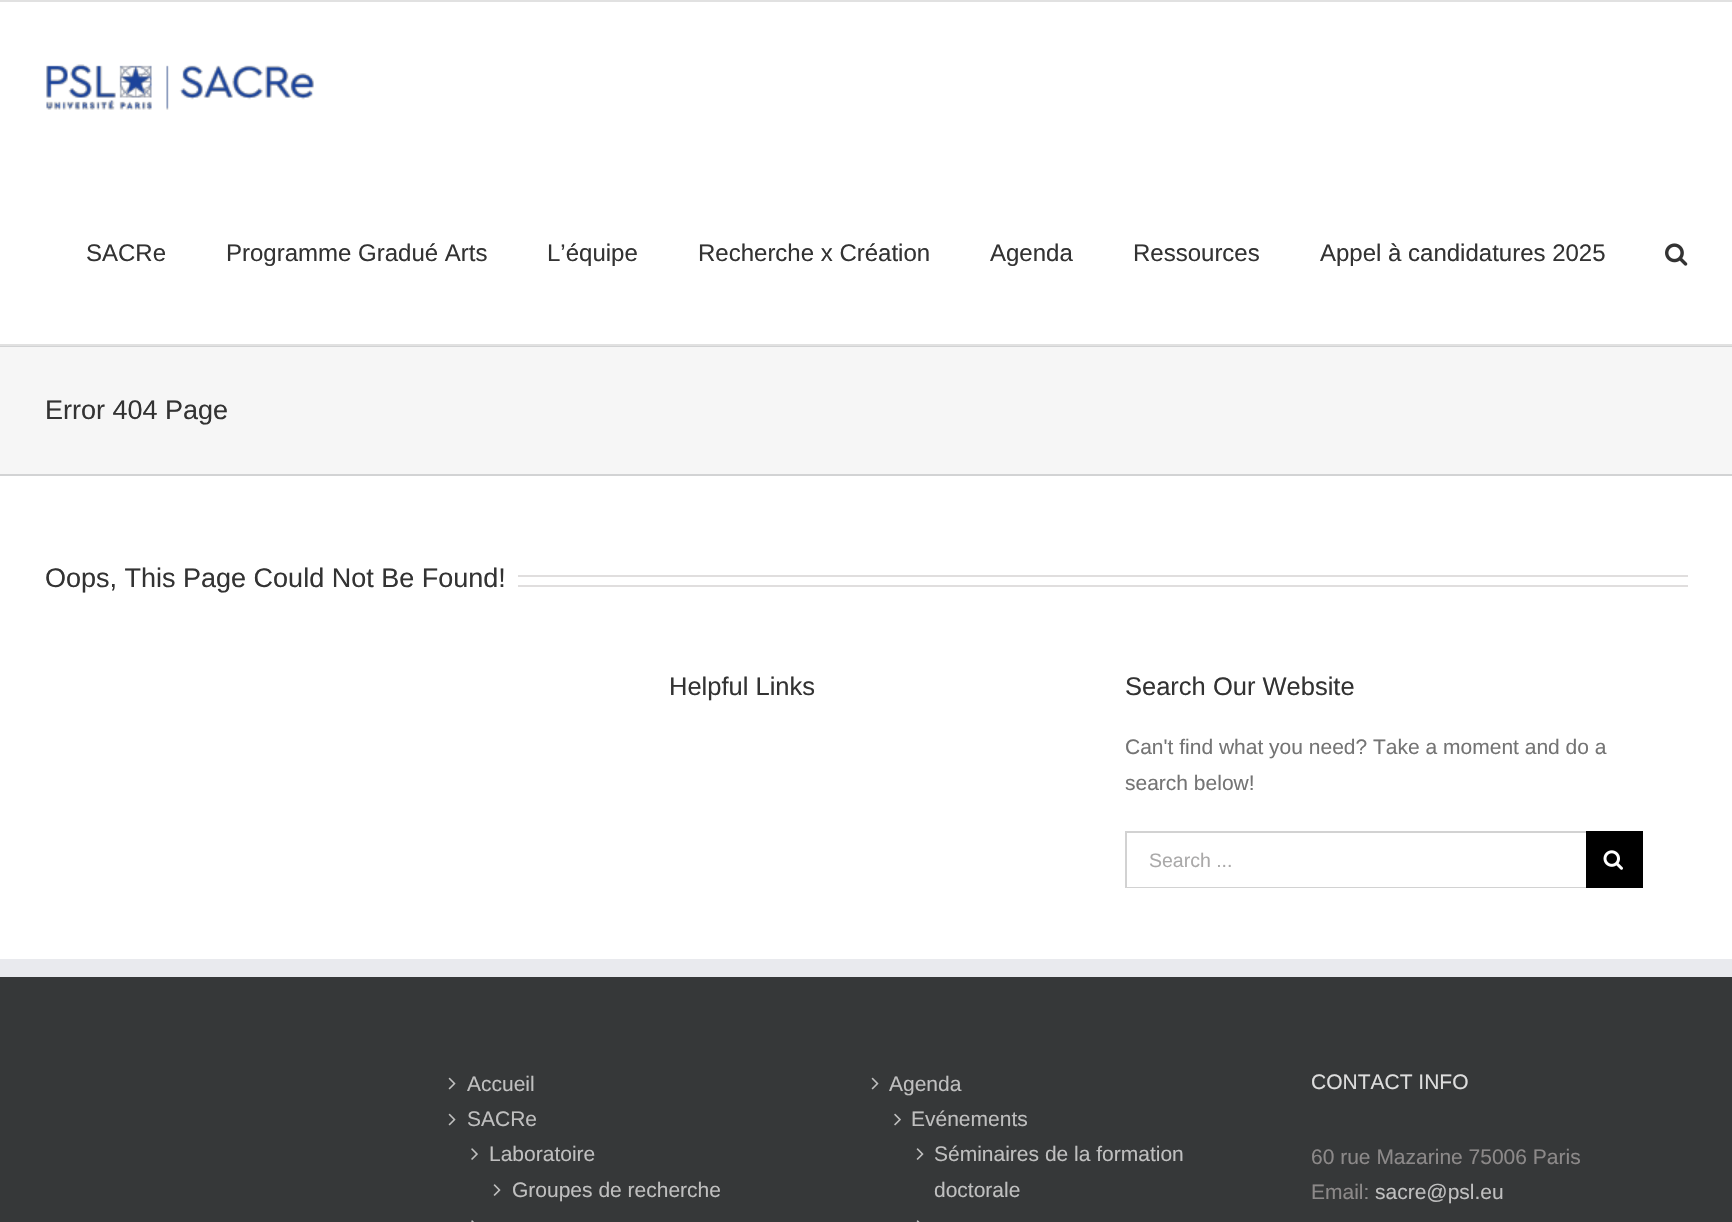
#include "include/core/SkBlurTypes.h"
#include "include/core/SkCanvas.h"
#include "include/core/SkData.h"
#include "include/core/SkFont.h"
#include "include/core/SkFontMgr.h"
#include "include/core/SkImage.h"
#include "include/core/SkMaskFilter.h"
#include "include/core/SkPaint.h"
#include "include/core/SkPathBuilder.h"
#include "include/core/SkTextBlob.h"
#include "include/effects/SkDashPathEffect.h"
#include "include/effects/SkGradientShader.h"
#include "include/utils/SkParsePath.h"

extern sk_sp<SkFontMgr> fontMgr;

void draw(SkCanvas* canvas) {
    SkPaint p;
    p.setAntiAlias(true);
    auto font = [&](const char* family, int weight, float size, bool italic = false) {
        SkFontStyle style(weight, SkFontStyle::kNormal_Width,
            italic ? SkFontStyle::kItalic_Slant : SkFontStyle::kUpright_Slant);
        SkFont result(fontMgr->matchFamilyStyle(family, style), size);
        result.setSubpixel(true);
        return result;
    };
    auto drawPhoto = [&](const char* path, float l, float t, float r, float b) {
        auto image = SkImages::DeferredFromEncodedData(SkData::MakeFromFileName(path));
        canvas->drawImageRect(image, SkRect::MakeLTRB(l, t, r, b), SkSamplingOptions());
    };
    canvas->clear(0xFFFFFFFF);
    p.setColor(0xFFE1E1E1);
    canvas->drawRect(SkRect::MakeLTRB(0, 0, 1732, 2), p);
    canvas->drawRect(SkRect::MakeLTRB(0, 344, 1732, 346), p);
    drawPhoto("media/1.png", 46, 64, 314, 110);
    auto font1 = font("Liberation Sans", 400, 24);
    p.setColor(0xFF333333);
    {
        const struct { const char* s; float x, y; } items[] = {
            {"SACRe", 86, 261},
            {"Programme Gradué Arts", 226, 261},
            {"L’équipe", 547, 261},
            {"Recherche x Création", 698, 261},
            {"Agenda", 990, 261},
            {"Ressources", 1133, 261},
            {"Appel à candidatures 2025", 1320, 261},
        };
        for (auto [s, x, y] : items) {
            canvas->drawString(s, x, y, font1, p);
        }
    }
    drawPhoto("media/2.png", 1665, 243, 1688, 266);
    {
        const struct { float l, t, r, b; SkColor color; } items[] = {
            {0, 347, 1732, 474, 0xFFF6F6F6},
            {0, 346, 1732, 347, 0xFFD2D3D4},
            {0, 474, 1732, 476, 0xFFD2D3D4},
        };
        for (auto [l, t, r, b, color] : items) {
            p.setColor(color);
            canvas->drawRect(SkRect::MakeLTRB(l, t, r, b), p);
        }
    }
    auto font2 = font("Liberation Sans", 400, 27);
    p.setColor(0xFF333333);
    canvas->drawString("Error 404 Page", 45, 419, font2, p);
    canvas->drawString("Oops, This Page Could Not Be Found!", 45, 587, font2, p);
    p.setColor(0xFFE0DEDE);
    canvas->drawRect(SkRect::MakeLTRB(518, 575, 1688, 577), p);
    canvas->drawRect(SkRect::MakeLTRB(518, 585, 1688, 587), p);
    auto font3 = font("Liberation Sans", 400, 25.5f);
    p.setColor(0xFF333333);
    canvas->drawString("Helpful Links", 669, 695, font3, p);
    canvas->drawString("Search Our Website", 1125, 695, font3, p);
    auto font4 = font("Liberation Sans", 400, 21);
    p.setColor(0xFF747474);
    canvas->drawString("Can't find what you need? Take a moment and do a", 1125, 754, font4, p);
    canvas->drawString("search below!", 1125, 790, font4, p);
    {
        const struct { float l, t, r, b; SkColor color; } items[] = {
            {1125, 831, 1586, 833, 0xFFD2D2D2},
            {1125, 887, 1586, 888, 0xFFD2D2D2},
            {1125, 831, 1127, 888, 0xFFD2D2D2},
        };
        for (auto [l, t, r, b, color] : items) {
            p.setColor(color);
            canvas->drawRect(SkRect::MakeLTRB(l, t, r, b), p);
        }
    }
    auto font5 = font("Liberation Sans", 400, 19.5f);
    p.setColor(0xFFAAA9A9);
    canvas->drawString("Search ...", 1149, 867, font5, p);
    p.setColor(0xFF000000);
    canvas->drawRect(SkRect::MakeLTRB(1586, 831, 1643, 888), p);
    drawPhoto("media/3.png", 1603, 850, 1623, 870);
    p.setColor(0xFF363839);
    canvas->drawRect(SkRect::MakeLTRB(0, 977, 1732, 1222), p);
    p.setColor(0xFFE9EAEE);
    canvas->drawRect(SkRect::MakeLTRB(0, 959, 1732, 977), p);
    drawPhoto("media/4.png", 448, 1077, 456, 1090);
    p.setColor(0xFFBFBFBF);
    canvas->drawString("Accueil", 467, 1091, font4, p);
    drawPhoto("media/4.png", 448, 1113, 456, 1126);
    canvas->drawString("SACRe", 467, 1126, font4, p);
    drawPhoto("media/5.png", 471, 1148, 478, 1160);
    canvas->drawString("Laboratoire", 489, 1161, font4, p);
    drawPhoto("media/6.png", 493, 1184, 501, 1196);
    canvas->drawString("Groupes de recherche", 512, 1197, font4, p);
    drawPhoto("media/7.png", 471, 1220, 474, 1222);
    drawPhoto("media/4.png", 871, 1077, 879, 1090);
    canvas->drawString("Agenda", 889, 1091, font4, p);
    drawPhoto("media/8.png", 894, 1113, 901, 1126);
    canvas->drawString("Evénements", 911, 1126, font4, p);
    drawPhoto("media/6.png", 916, 1148, 924, 1160);
    canvas->drawString("Séminaires de la formation", 934, 1161, font4, p);
    canvas->drawString("doctorale", 934, 1197, font4, p);
    drawPhoto("media/9.png", 916, 1220, 920, 1222);
    p.setColor(0xFFDDDDDD);
    canvas->drawString("CONTACT INFO", 1311, 1089, font4, p);
    p.setColor(0xFF8C8989);
    canvas->drawString("60 rue Mazarine 75006 Paris", 1311, 1164, font4, p);
    canvas->drawString("Email:", 1311, 1199, font4, p);
    p.setColor(0xFFBFBFBF);
    canvas->drawString("sacre@psl.eu", 1375, 1199, font4, p);
}
